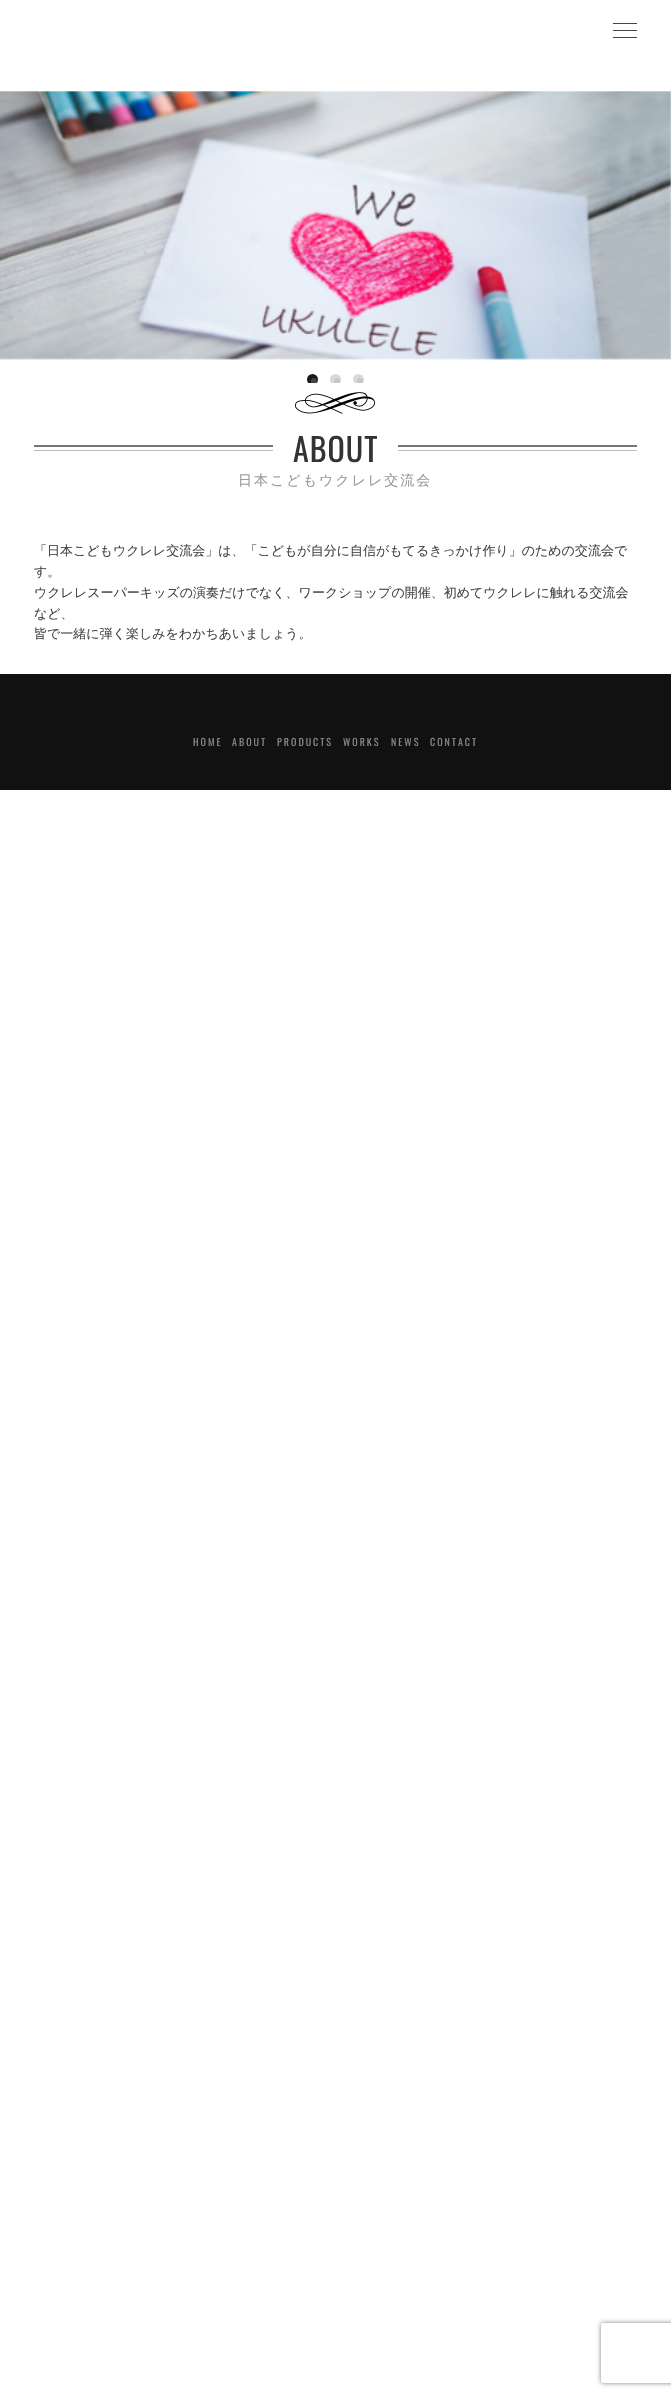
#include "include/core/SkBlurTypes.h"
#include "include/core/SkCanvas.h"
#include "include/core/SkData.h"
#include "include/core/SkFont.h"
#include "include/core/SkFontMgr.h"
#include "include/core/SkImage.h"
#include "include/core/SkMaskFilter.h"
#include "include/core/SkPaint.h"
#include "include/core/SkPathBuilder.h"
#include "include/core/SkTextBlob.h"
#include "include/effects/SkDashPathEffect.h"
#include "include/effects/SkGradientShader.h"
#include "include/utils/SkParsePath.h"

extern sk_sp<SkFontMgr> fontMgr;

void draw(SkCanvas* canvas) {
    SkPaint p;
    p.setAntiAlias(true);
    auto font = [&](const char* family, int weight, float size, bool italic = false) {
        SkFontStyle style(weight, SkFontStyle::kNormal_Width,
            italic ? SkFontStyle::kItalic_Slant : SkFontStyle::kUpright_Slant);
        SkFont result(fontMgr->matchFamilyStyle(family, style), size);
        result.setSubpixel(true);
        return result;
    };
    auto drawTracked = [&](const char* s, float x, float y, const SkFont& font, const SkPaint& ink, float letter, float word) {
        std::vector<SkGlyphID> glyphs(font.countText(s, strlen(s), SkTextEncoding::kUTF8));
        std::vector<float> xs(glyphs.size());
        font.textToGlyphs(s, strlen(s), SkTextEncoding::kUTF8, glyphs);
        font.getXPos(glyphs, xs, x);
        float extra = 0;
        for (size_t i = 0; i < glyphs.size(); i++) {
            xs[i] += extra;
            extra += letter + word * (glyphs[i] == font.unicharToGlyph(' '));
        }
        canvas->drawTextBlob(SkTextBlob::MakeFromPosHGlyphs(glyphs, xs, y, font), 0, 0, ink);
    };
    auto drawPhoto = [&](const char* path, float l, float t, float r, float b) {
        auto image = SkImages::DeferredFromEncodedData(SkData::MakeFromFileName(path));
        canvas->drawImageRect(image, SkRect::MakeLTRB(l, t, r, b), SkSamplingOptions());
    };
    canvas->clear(0xFFFFFFFF);
    {
        const struct { float l, t, r, b; SkColor color; } items[] = {
            {613, 23, 637, 24, 0xFF444444},
            {613, 30, 637, 31, 0xFF444444},
            {613, 37, 637, 38, 0xFF444444},
        };
        for (auto [l, t, r, b, color] : items) {
            p.setColor(color);
            canvas->drawRect(SkRect::MakeLTRB(l, t, r, b), p);
        }
    }
    drawPhoto("media/1.png", 0, 91, 671, 360);
    canvas->save();
    canvas->clipRect(SkRect::MakeLTRB(0, 91, 671, 383));
    p.setColor(0xFF1A1A1A);
    canvas->drawCircle(312.5f, 379.5f, 5.5f, p);
    p.setColor(0xFF444444);
    canvas->drawCircle(314, 381, 3, p);
    p.setColor(0xFFD9D9D9);
    canvas->drawCircle(335.5f, 379.5f, 5.5f, p);
    p.setColor(0xFFC7C7C7);
    canvas->drawCircle(337, 381, 3, p);
    p.setColor(0xFFD9D9D9);
    canvas->drawCircle(358.5f, 379.5f, 5.5f, p);
    p.setColor(0xFFC7C7C7);
    canvas->drawCircle(360, 381, 3, p);
    canvas->restore();
    drawPhoto("media/2.png", 295, 392, 375, 414);
    p.setColor(0xFF777777);
    canvas->drawRect(SkRect::MakeLTRB(34, 445, 273, 447), p);
    p.setColor(0xFFBABABA);
    canvas->drawRect(SkRect::MakeLTRB(34, 450, 273, 451), p);
    auto font1 = font("Oswald", 400, 32);
    p.setColor(0xFF333333);
    drawTracked("ABOUT", 293, 462, font1, p, 1, 0);
    p.setColor(0xFF777777);
    canvas->drawRect(SkRect::MakeLTRB(398, 445, 637, 447), p);
    p.setColor(0xFFBABABA);
    canvas->drawRect(SkRect::MakeLTRB(398, 450, 637, 451), p);
    auto font2 = font("WenQuanYi Zen Hei", 500, 14);
    p.setColor(0xFF999999);
    drawTracked("日本こどもウクレレ交流会", 238, 485, font2, p, 2, 0);
    auto font3 = font("WenQuanYi Zen Hei", 500, 13);
    p.setColor(0xFF444444);
    {
        const struct { const char* s; float x, y; } items[] = {
            {"「日本こどもウクレレ交流会」は、「こどもが自分に自信がもてるきっかけ作り」のための交流会で", 34, 555},
            {"す。", 34, 576},
            {"ウクレレスーパーキッズの演奏だけでなく、ワークショップの開催、初めてウクレレに触れる交流会", 34, 597},
            {"など、", 34, 618},
            {"皆で一緒に弾く楽しみをわかちあいましょう。", 34, 638},
        };
        for (auto [s, x, y] : items) {
            canvas->drawString(s, x, y, font3, p);
        }
    }
    p.setColor(0xFF111111);
    canvas->drawRect(SkRect::MakeLTRB(0, 674, 671, 790), p);
    auto font4 = font("Oswald", 400, 10);
    p.setColor(0xFF888888);
    {
        const struct { const char* s; float x, y; } items[] = {
            {"HOME", 193, 746},
            {"ABOUT", 232, 746},
            {"PRODUCTS", 277, 746},
            {"WORKS", 343, 746},
            {"NEWS", 391, 746},
            {"CONTACT", 430, 746},
        };
        for (auto [s, x, y] : items) {
            drawTracked(s, x, y, font4, p, 2, 0);
        }
    }
    canvas->save();
    canvas->clipPath(SkPathBuilder(SkPathFillType::kEvenOdd).moveTo(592, 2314).lineTo(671, 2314).lineTo(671, 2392).lineTo(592, 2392).close().moveTo(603, 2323).lineTo(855, 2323).cubicTo(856, 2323, 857, 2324, 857, 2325).lineTo(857, 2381).cubicTo(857, 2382, 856, 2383, 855, 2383).lineTo(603, 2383).cubicTo(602, 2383, 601, 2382, 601, 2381).lineTo(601, 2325).cubicTo(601, 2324, 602, 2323, 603, 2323).close().detach(), true);
    p.setColor(0xFF808080);
    p.setMaskFilter(SkMaskFilter::MakeBlur(kNormal_SkBlurStyle, 2.5f));
    canvas->drawRoundRect(SkRect::MakeLTRB(601, 2323, 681, 2383), 2, 2, p);
    p.setMaskFilter(nullptr);
    canvas->restore();
}
